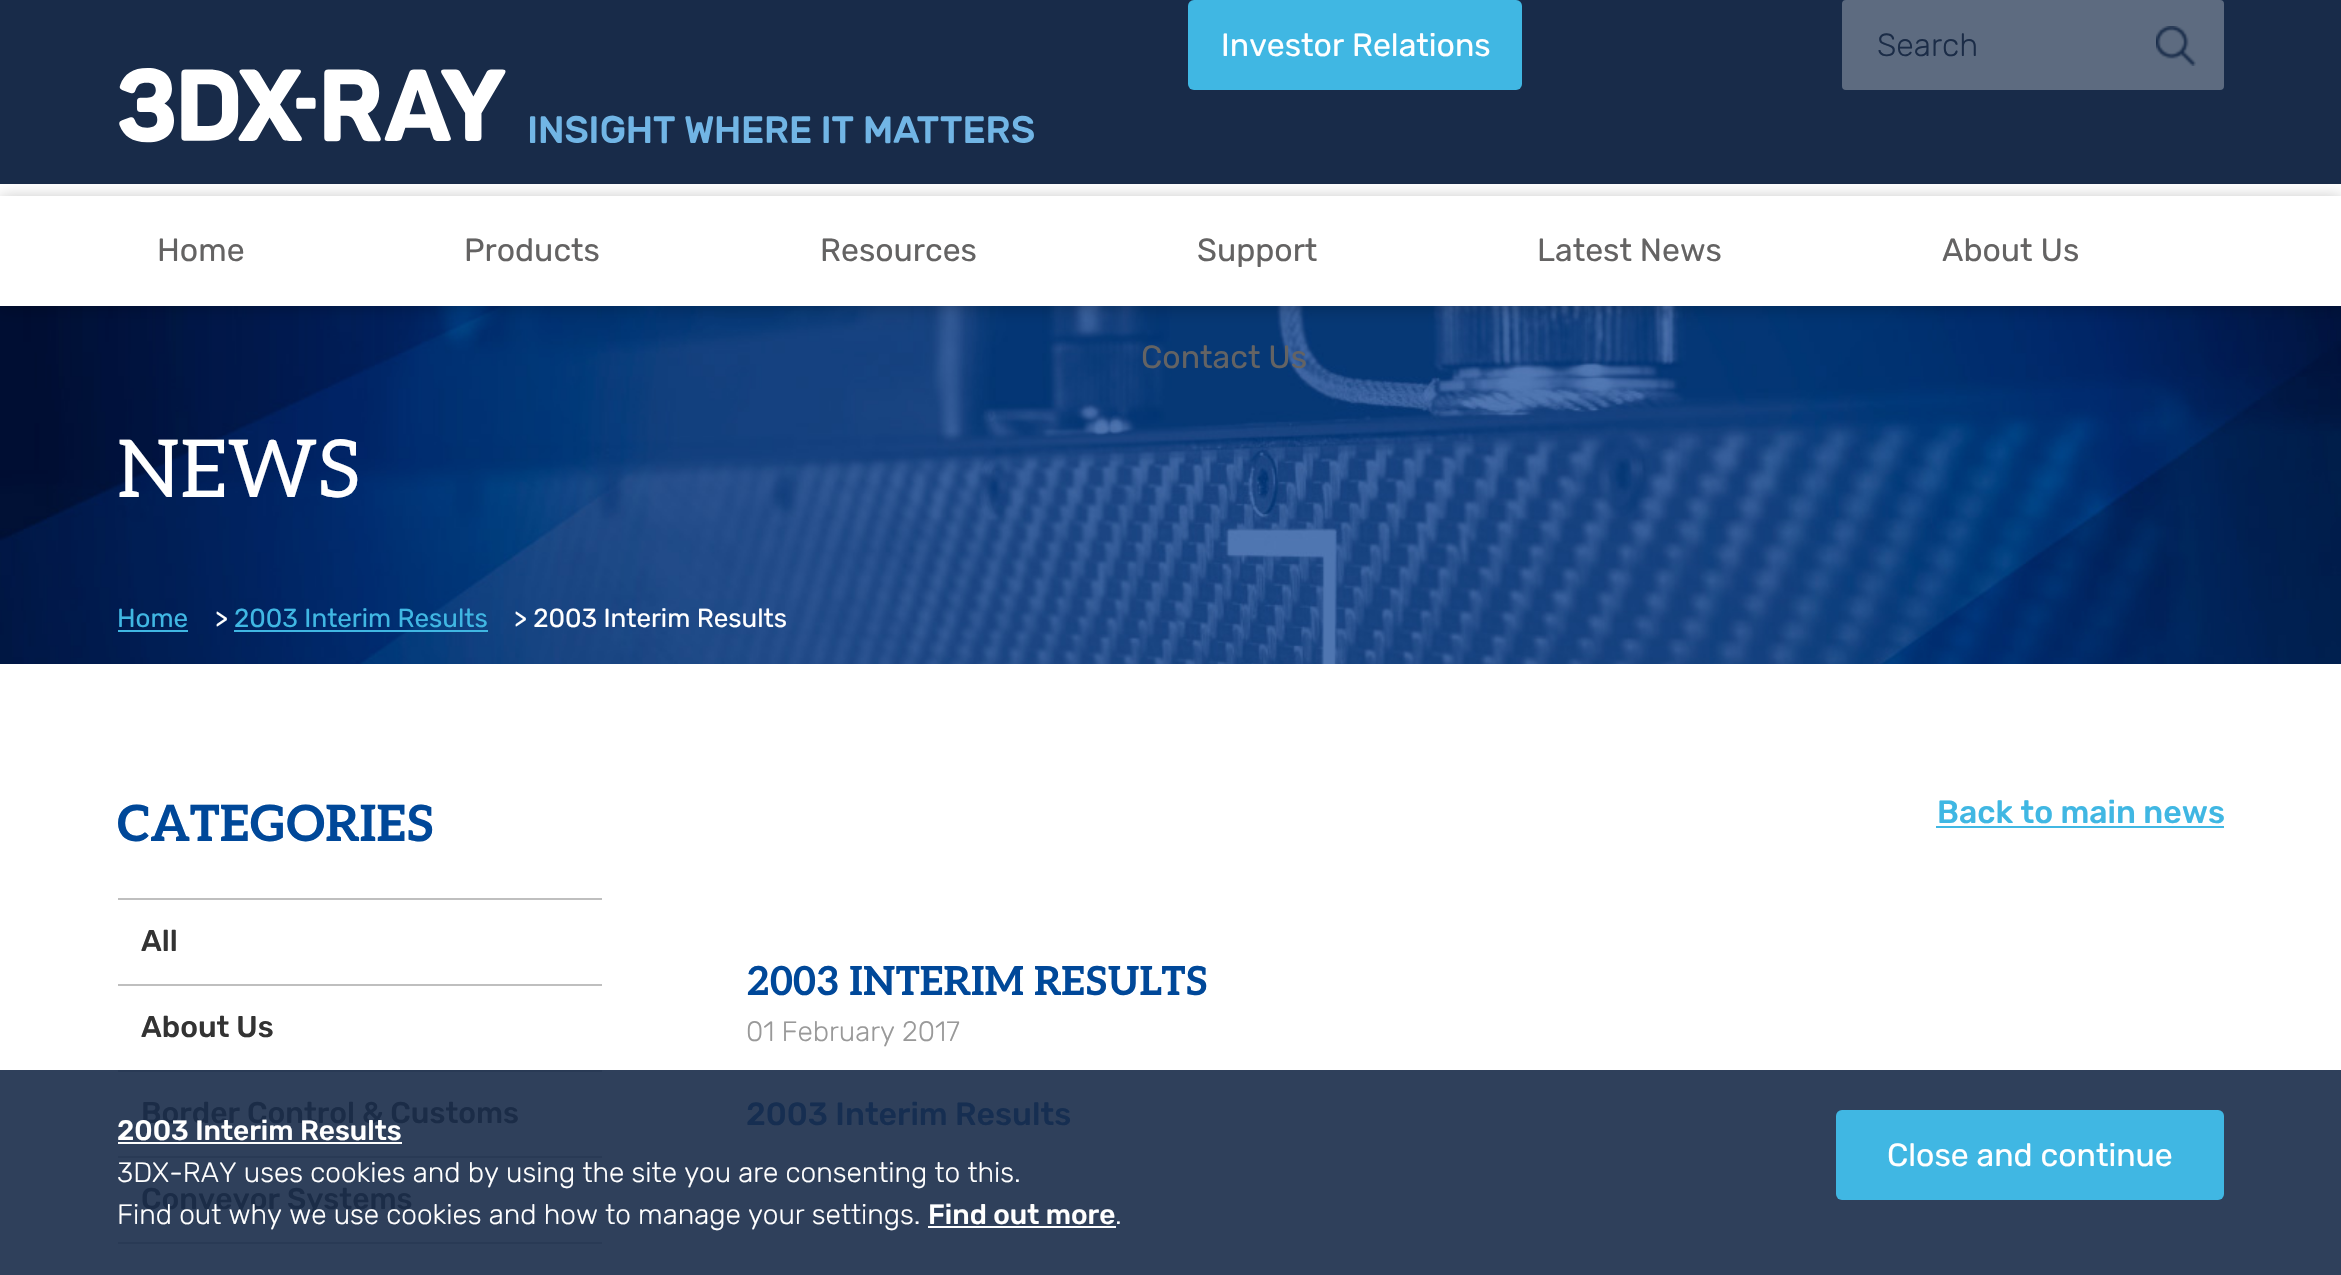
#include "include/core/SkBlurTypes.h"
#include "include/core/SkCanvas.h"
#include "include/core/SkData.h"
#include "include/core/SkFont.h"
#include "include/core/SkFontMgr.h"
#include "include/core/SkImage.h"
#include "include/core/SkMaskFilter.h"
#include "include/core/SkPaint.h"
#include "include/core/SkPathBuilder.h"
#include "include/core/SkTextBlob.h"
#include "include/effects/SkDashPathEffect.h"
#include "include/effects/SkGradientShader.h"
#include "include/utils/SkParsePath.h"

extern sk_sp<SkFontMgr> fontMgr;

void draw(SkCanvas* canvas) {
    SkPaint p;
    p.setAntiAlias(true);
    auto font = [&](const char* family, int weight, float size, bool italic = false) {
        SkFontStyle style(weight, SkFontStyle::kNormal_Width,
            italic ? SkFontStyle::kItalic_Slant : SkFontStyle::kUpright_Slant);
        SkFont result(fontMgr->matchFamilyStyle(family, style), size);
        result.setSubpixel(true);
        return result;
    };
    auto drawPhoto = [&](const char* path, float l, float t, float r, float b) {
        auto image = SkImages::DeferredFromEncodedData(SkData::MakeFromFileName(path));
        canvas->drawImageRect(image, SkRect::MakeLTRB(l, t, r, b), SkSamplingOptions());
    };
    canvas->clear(0xFFFFFFFF);
    p.setColor(0xFF2F405B);
    canvas->drawRect(SkRect::MakeLTRB(0, 1070, 2341, 1275), p);
    p.setColor(0xFF182B49);
    canvas->drawRect(SkRect::MakeLTRB(0, 0, 2341, 184), p);
    p.setColor(0xFF40B7E3);
    canvas->drawRoundRect(SkRect::MakeLTRB(1188, 0, 1522, 90), 6, 6, p);
    auto font1 = font("Rubik", 400, 32);
    p.setColor(0xFFFFFFFF);
    canvas->drawString("Investor Relations", 1221, 56, font1, p);
    p.setColor(0xFF5D6B80);
    canvas->drawRoundRect(SkRect::MakeLTRB(1843, 1, 2223, 89), 3, 3, p);
    p.setStyle(SkPaint::kStroke_Style);
    p.setStrokeWidth(2);
    canvas->drawRoundRect(SkRect::MakeLTRB(1843, 1, 2223, 89), 3, 3, p);
    auto font2 = font("Rubik", 300, 32);
    p.setStyle(SkPaint::kFill_Style);
    p.setColor(0xFF1B2C47);
    canvas->drawString("Search", 1877, 56, font2, p);
    drawPhoto("media/1.png", 2156, 26, 2196, 66);
    drawPhoto("media/2.png", 119, 68, 1034, 144);
    drawPhoto("media/3.png", 0, 306, 2341, 664);
    p.setColor(0x40000000);
    p.setMaskFilter(SkMaskFilter::MakeBlur(kNormal_SkBlurStyle, 8));
    canvas->drawRect(SkRect::MakeLTRB(0, 198, 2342, 308), p);
    p.setMaskFilter(nullptr);
    p.setColor(0xFFFFFFFF);
    canvas->drawRect(SkRect::MakeLTRB(0, 196, 2341, 306), p);
    p.setColor(0xFF646363);
    {
        const struct { const char* s; float x, y; } items[] = {
            {"Home", 157, 261},
            {"Products", 464, 261},
            {"Resources", 820, 261},
            {"Support", 1197, 261},
            {"Latest News", 1537, 261},
            {"About Us", 1942, 261},
            {"Contact Us", 1141, 368},
        };
        for (auto [s, x, y] : items) {
            canvas->drawString(s, x, y, font1, p);
        }
    }
    auto font3 = font("Aleo", 400, 80);
    p.setColor(0xFFFFFFFF);
    canvas->drawString("NEWS", 117, 497, font3, p);
    auto font4 = font("Rubik", 400, 26);
    p.setColor(0xFF40B7E3);
    canvas->drawString("Home", 117, 627, font4, p);
    canvas->drawRect(SkRect::MakeLTRB(118, 630, 188, 632), p);
    p.setColor(0xFFFFFFFF);
    canvas->drawString(">", 215, 627, font4, p);
    p.setColor(0xFF40B7E3);
    canvas->drawString("2003 Interim Results", 234, 627, font4, p);
    canvas->drawRect(SkRect::MakeLTRB(234, 630, 488, 632), p);
    p.setColor(0xFFFFFFFF);
    canvas->drawString("> 2003 Interim Results", 514, 627, font4, p);
    auto font5 = font("Aleo", 700, 50);
    p.setColor(0xFF004899);
    canvas->drawString("CATEGORIES", 117, 841, font5, p);
    p.setColor(0xFFBFBFBF);
    canvas->drawRect(SkRect::MakeLTRB(118, 898, 602, 900), p);
    canvas->drawRect(SkRect::MakeLTRB(118, 984, 602, 986), p);
    auto font6 = font("Rubik", 500, 30);
    p.setColor(0xFF333333);
    canvas->drawString("All", 141, 951, font6, p);
    p.setColor(0xFF293A55);
    canvas->drawRect(SkRect::MakeLTRB(118, 1070, 602, 1072), p);
    p.setColor(0xFF333333);
    canvas->drawString("About Us", 141, 1037, font6, p);
    p.setColor(0xFF293A55);
    canvas->drawRect(SkRect::MakeLTRB(118, 1156, 602, 1158), p);
    p.setColor(0xFF1B2C47);
    canvas->drawString("Border Control & Customs", 141, 1123, font6, p);
    p.setColor(0xFF293A55);
    canvas->drawRect(SkRect::MakeLTRB(118, 1242, 602, 1244), p);
    p.setColor(0xFF1B2C47);
    canvas->drawString("Conveyor Systems", 141, 1209, font6, p);
    auto font7 = font("Rubik", 500, 32);
    p.setColor(0xFF40B7E3);
    canvas->drawString("Back to main news", 1937, 823, font7, p);
    canvas->drawRect(SkRect::MakeLTRB(1936, 826, 2224, 828), p);
    auto font8 = font("Aleo", 700, 40);
    p.setColor(0xFF004899);
    canvas->drawString("2003 INTERIM RESULTS", 746, 995, font8, p);
    auto font9 = font("Rubik", 300, 28);
    p.setColor(0xFF999999);
    canvas->drawString("01 February 2017", 746, 1041, font9, p);
    p.setColor(0xFF162E51);
    canvas->drawString("2003 Interim Results", 746, 1125, font7, p);
    auto font10 = font("Rubik", 500, 28);
    p.setColor(0xFFFFFFFF);
    canvas->drawString("2003 Interim Results", 117, 1140, font10, p);
    canvas->drawRect(SkRect::MakeLTRB(118, 1142, 402, 1144), p);
    canvas->drawString("3DX-RAY uses cookies and by using the site you are consenting to this.", 117, 1182, font9, p);
    canvas->drawString("Find out why we use cookies and how to manage your settings.", 117, 1224, font9, p);
    canvas->drawString("Find out more", 928, 1224, font10, p);
    canvas->drawRect(SkRect::MakeLTRB(928, 1226, 1116, 1228), p);
    canvas->drawString(".", 1115, 1224, font9, p);
    p.setColor(0xFF40B7E3);
    canvas->drawRoundRect(SkRect::MakeLTRB(1836, 1110, 2224, 1200), 6, 6, p);
    p.setColor(0xFFFFFFFF);
    canvas->drawString("Close and continue", 1887, 1166, font1, p);
}
